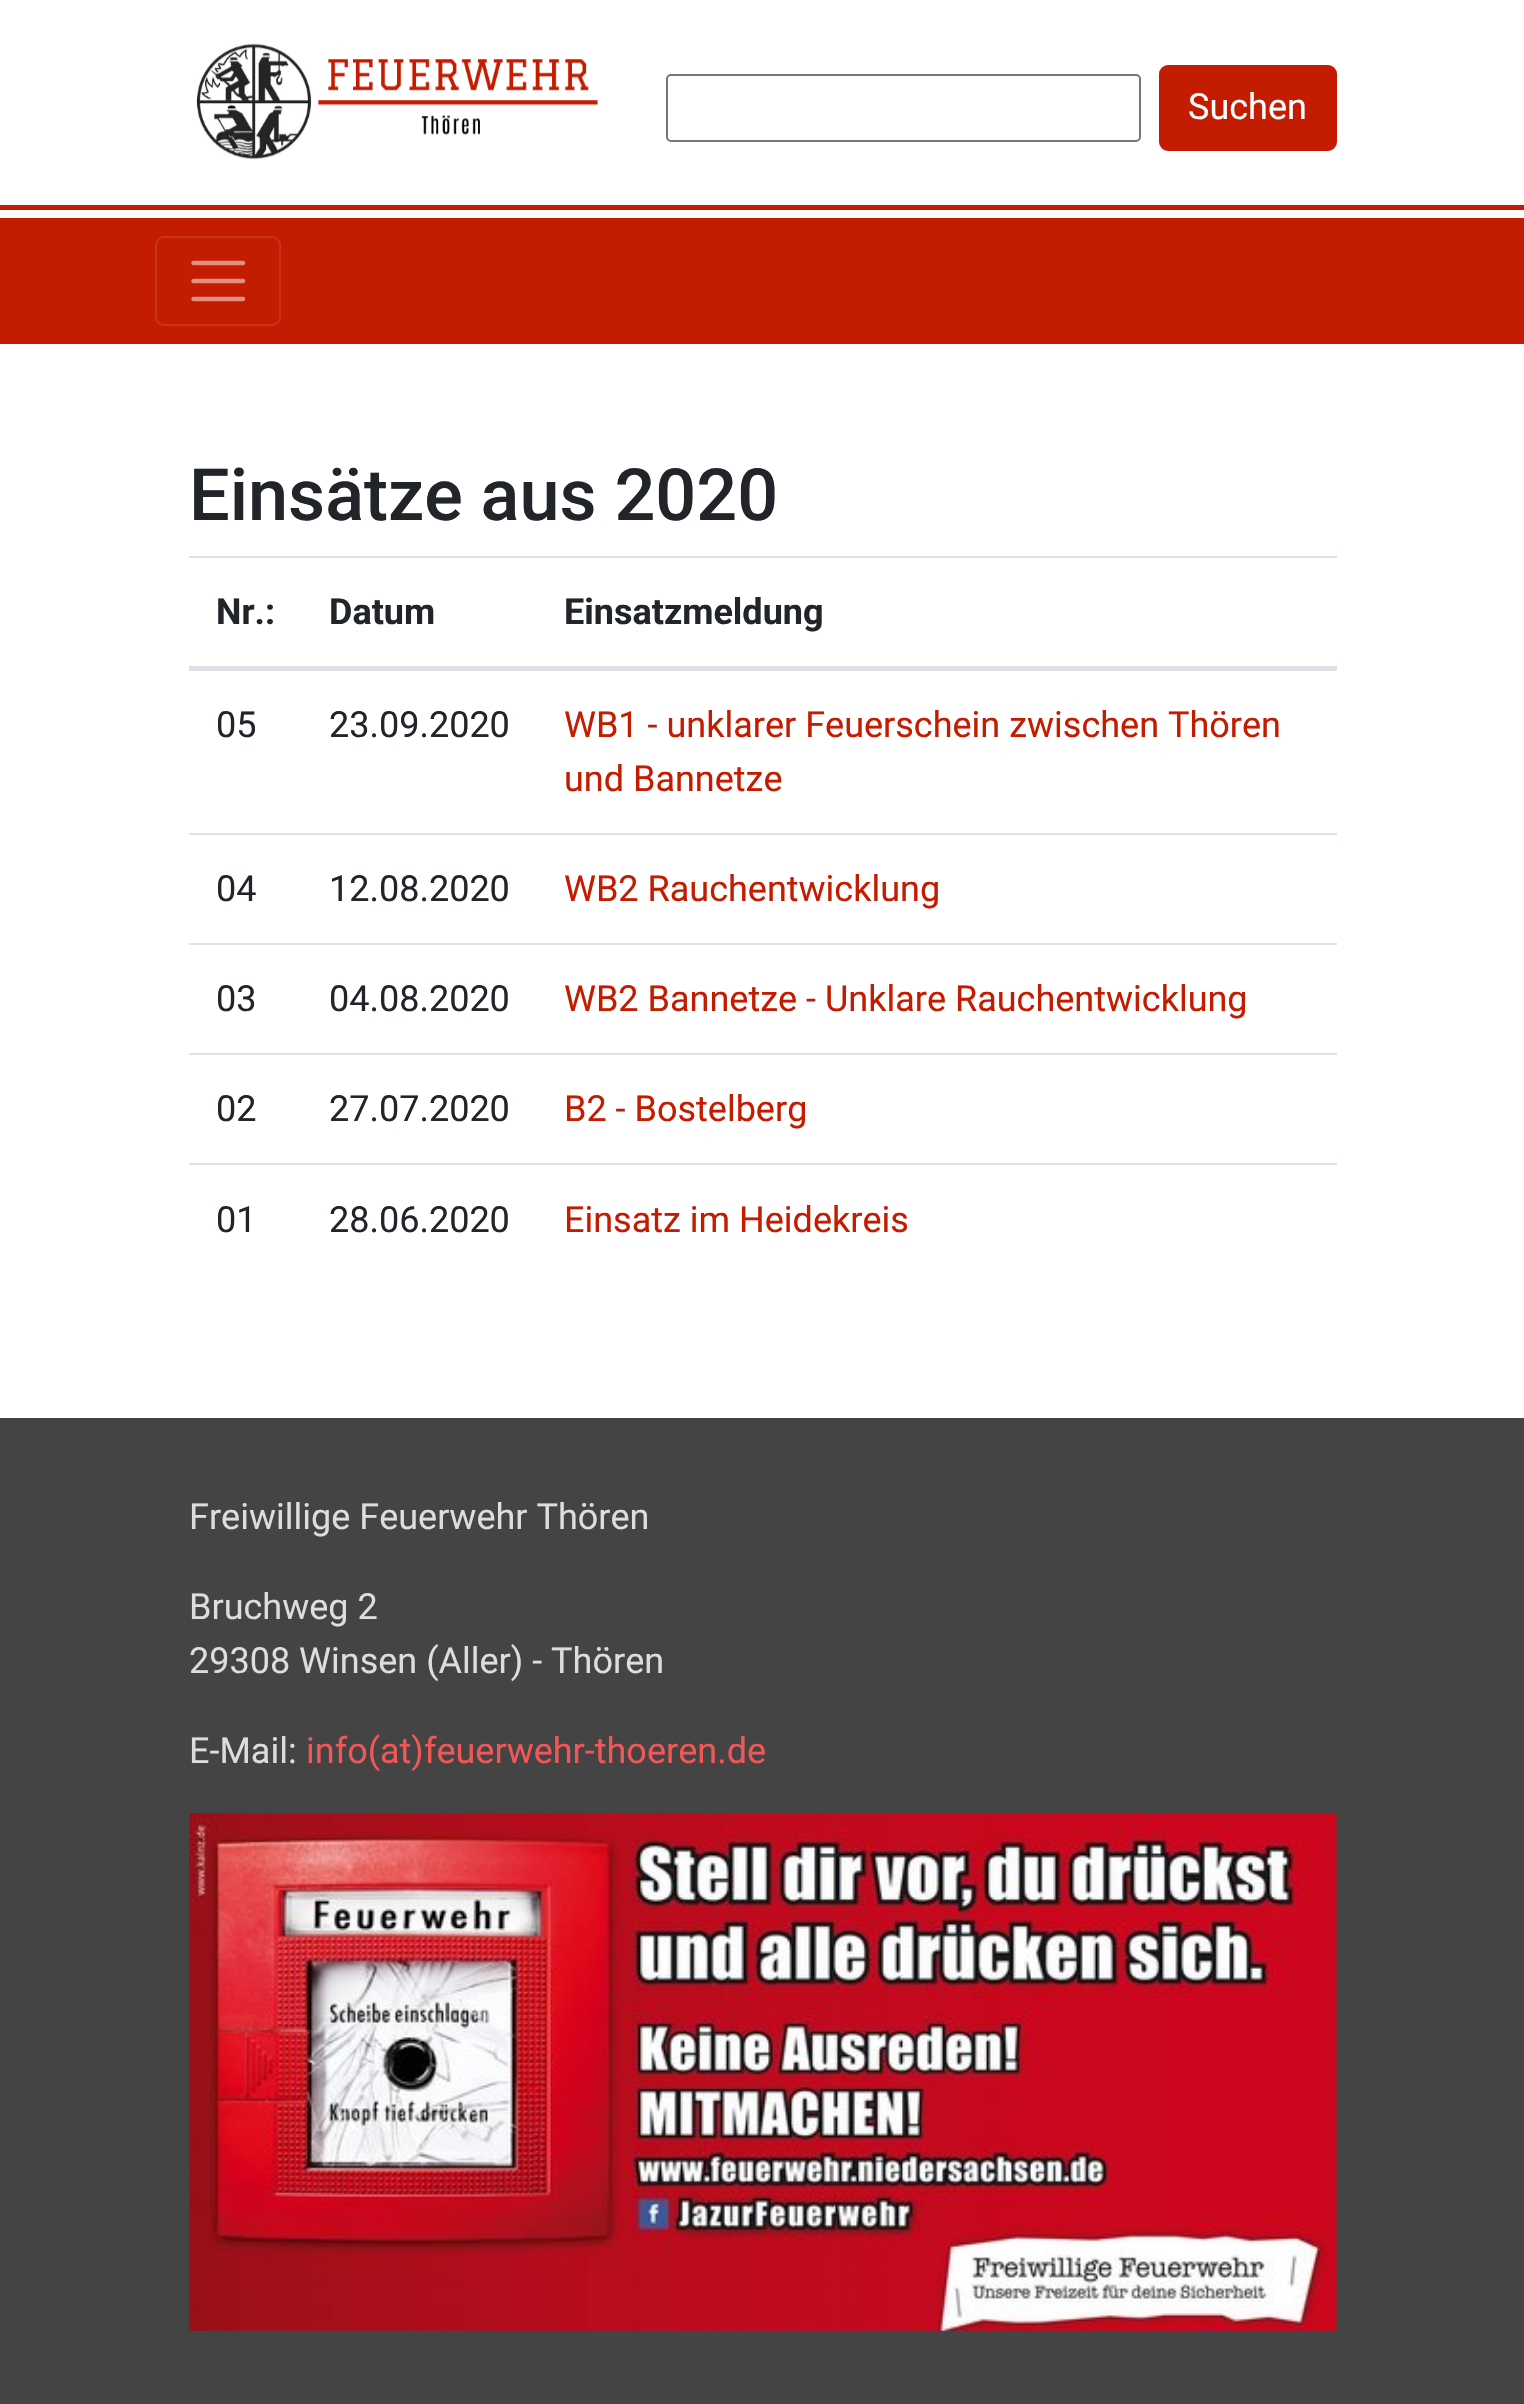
#include "include/core/SkBlurTypes.h"
#include "include/core/SkCanvas.h"
#include "include/core/SkData.h"
#include "include/core/SkFont.h"
#include "include/core/SkFontMgr.h"
#include "include/core/SkImage.h"
#include "include/core/SkMaskFilter.h"
#include "include/core/SkPaint.h"
#include "include/core/SkPathBuilder.h"
#include "include/core/SkTextBlob.h"
#include "include/effects/SkDashPathEffect.h"
#include "include/effects/SkGradientShader.h"
#include "include/utils/SkParsePath.h"

extern sk_sp<SkFontMgr> fontMgr;

void draw(SkCanvas* canvas) {
    SkPaint p;
    p.setAntiAlias(true);
    auto font = [&](const char* family, int weight, float size, bool italic = false) {
        SkFontStyle style(weight, SkFontStyle::kNormal_Width,
            italic ? SkFontStyle::kItalic_Slant : SkFontStyle::kUpright_Slant);
        SkFont result(fontMgr->matchFamilyStyle(family, style), size);
        result.setSubpixel(true);
        return result;
    };
    auto drawPhoto = [&](const char* path, float l, float t, float r, float b) {
        auto image = SkImages::DeferredFromEncodedData(SkData::MakeFromFileName(path));
        canvas->drawImageRect(image, SkRect::MakeLTRB(l, t, r, b), SkSamplingOptions());
    };
    canvas->clear(0xFFFFFFFF);
    p.setColor(0xFFC41C00);
    canvas->drawRect(SkRect::MakeLTRB(0, 205, 1524, 210), p);
    drawPhoto("media/1.png", 196, 43, 598, 160);
    p.setStyle(SkPaint::kStroke_Style);
    p.setStrokeWidth(2);
    p.setColor(0xFF767676);
    canvas->drawRoundRect(SkRect::MakeLTRB(667, 75, 1140, 141), 4, 4, p);
    p.setStyle(SkPaint::kFill_Style);
    p.setColor(0xFFC41C00);
    canvas->drawRoundRect(SkRect::MakeLTRB(1160, 66, 1336, 150), 8, 8, p);
    p.setStyle(SkPaint::kStroke_Style);
    canvas->drawRoundRect(SkRect::MakeLTRB(1160, 66, 1336, 150), 8, 8, p);
    auto font1 = font("Roboto", 400, 36);
    p.setStyle(SkPaint::kFill_Style);
    p.setColor(0xFFFFFFFF);
    canvas->drawString("Suchen", 1188, 119, font1, p);
    p.setColor(0xFFC41C00);
    canvas->drawRect(SkRect::MakeLTRB(0, 218, 1524, 344), p);
    p.setStyle(SkPaint::kStroke_Style);
    p.setColor(0xFFCA331A);
    canvas->drawRoundRect(SkRect::MakeLTRB(156, 237, 280, 325), 8, 8, p);
    p.setStrokeWidth(4.5f);
    p.setStrokeCap(SkPaint::kRound_Cap);
    p.setColor(0xFFE28E80);
    canvas->drawPath(SkPathBuilder().moveTo(193.5f, 263).lineTo(243, 263).moveTo(193.5f, 281).lineTo(243, 281).moveTo(193.5f, 299).lineTo(243, 299).detach(), p);
    auto font2 = font("Roboto", 500, 72);
    p.setStyle(SkPaint::kFill_Style);
    p.setColor(0xFF212529);
    canvas->drawString("Einsätze aus 2020", 189, 520, font2, p);
    auto font3 = font("Roboto", 700, 36);
    canvas->drawString("Nr.:", 216, 624, font3, p);
    canvas->drawString("Datum", 329, 624, font3, p);
    p.setColor(0xFFDEE2E6);
    canvas->drawRect(SkRect::MakeLTRB(189, 556, 1337, 558), p);
    canvas->drawRect(SkRect::MakeLTRB(189, 666, 1337, 671), p);
    p.setColor(0xFF212529);
    canvas->drawString("Einsatzmeldung", 564, 624, font3, p);
    canvas->drawString("05", 216, 737, font1, p);
    canvas->drawString("23.09.2020", 329, 737, font1, p);
    p.setColor(0xFFC41C00);
    canvas->drawString("WB1 - unklarer Feuerschein zwischen Thören", 564, 737, font1, p);
    canvas->drawString("und Bannetze", 564, 791, font1, p);
    p.setColor(0xFF212529);
    canvas->drawString("04", 216, 901, font1, p);
    canvas->drawString("12.08.2020", 329, 901, font1, p);
    p.setColor(0xFFDEE2E6);
    canvas->drawRect(SkRect::MakeLTRB(189, 833, 1337, 835), p);
    p.setColor(0xFFC41C00);
    canvas->drawString("WB2 Rauchentwicklung", 564, 901, font1, p);
    p.setColor(0xFF212529);
    canvas->drawString("03", 216, 1011, font1, p);
    canvas->drawString("04.08.2020", 329, 1011, font1, p);
    p.setColor(0xFFDEE2E6);
    canvas->drawRect(SkRect::MakeLTRB(189, 943, 1337, 945), p);
    p.setColor(0xFFC41C00);
    canvas->drawString("WB2 Bannetze - Unklare Rauchentwicklung", 564, 1011, font1, p);
    p.setColor(0xFF212529);
    canvas->drawString("02", 216, 1121, font1, p);
    canvas->drawString("27.07.2020", 329, 1121, font1, p);
    p.setColor(0xFFDEE2E6);
    canvas->drawRect(SkRect::MakeLTRB(189, 1053, 1337, 1055), p);
    p.setColor(0xFFC41C00);
    canvas->drawString("B2 - Bostelberg", 564, 1121, font1, p);
    p.setColor(0xFF212529);
    canvas->drawString("01", 216, 1232, font1, p);
    canvas->drawString("28.06.2020", 329, 1232, font1, p);
    p.setColor(0xFFDEE2E6);
    canvas->drawRect(SkRect::MakeLTRB(189, 1163, 1337, 1165), p);
    p.setColor(0xFFC41C00);
    canvas->drawString("Einsatz im Heidekreis", 564, 1232, font1, p);
    p.setColor(0xFF444444);
    canvas->drawRect(SkRect::MakeLTRB(0, 1418, 1524, 2404), p);
    p.setColor(0xFFDDDDDD);
    {
        const struct { const char* s; float x, y; } items[] = {
            {"Freiwillige Feuerwehr Thören", 189, 1529},
            {"Bruchweg 2", 189, 1619},
            {"29308 Winsen (Aller) - Thören", 189, 1673},
            {"E-Mail:", 189, 1763},
        };
        for (auto [s, x, y] : items) {
            canvas->drawString(s, x, y, font1, p);
        }
    }
    p.setColor(0xFFF15757);
    canvas->drawString("info(at)feuerwehr-thoeren.de", 306, 1763, font1, p);
    drawPhoto("media/2.png", 189, 1813, 1337, 2331);
}
